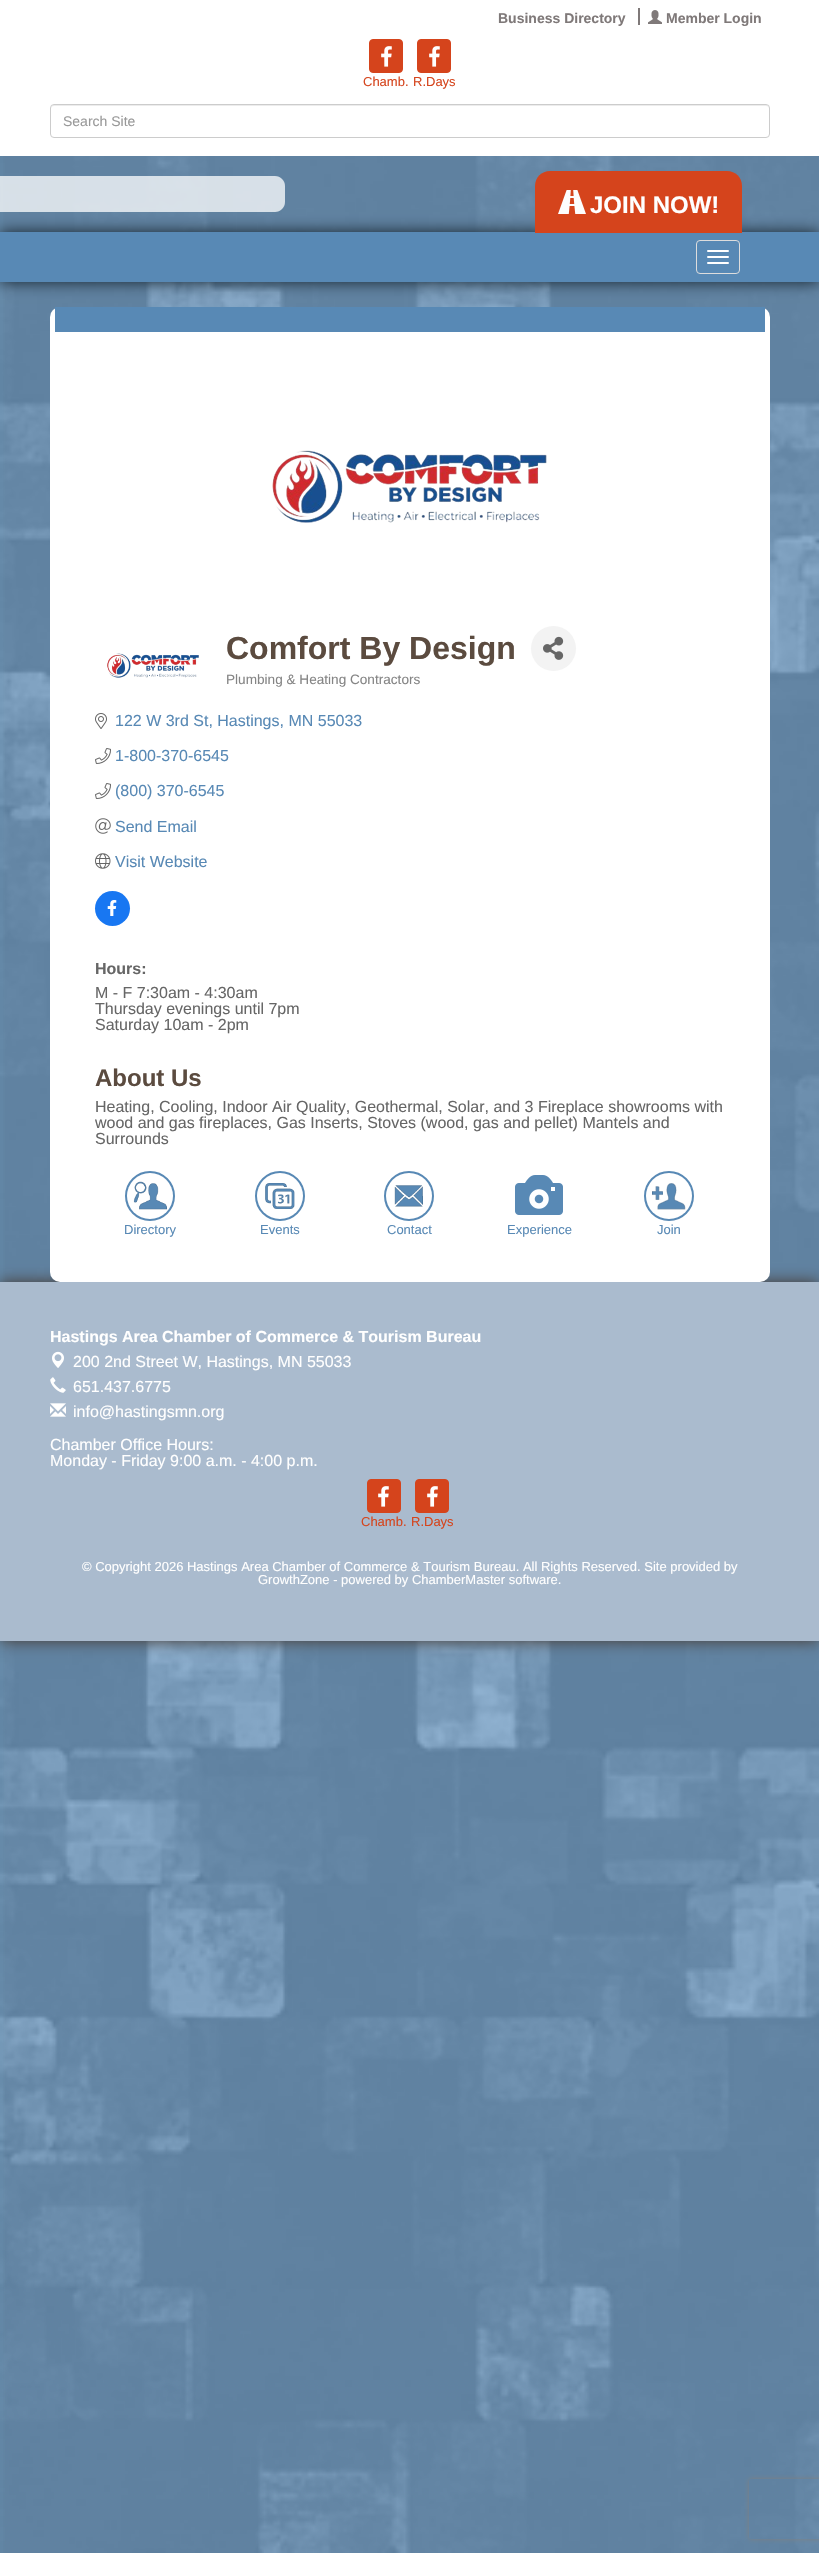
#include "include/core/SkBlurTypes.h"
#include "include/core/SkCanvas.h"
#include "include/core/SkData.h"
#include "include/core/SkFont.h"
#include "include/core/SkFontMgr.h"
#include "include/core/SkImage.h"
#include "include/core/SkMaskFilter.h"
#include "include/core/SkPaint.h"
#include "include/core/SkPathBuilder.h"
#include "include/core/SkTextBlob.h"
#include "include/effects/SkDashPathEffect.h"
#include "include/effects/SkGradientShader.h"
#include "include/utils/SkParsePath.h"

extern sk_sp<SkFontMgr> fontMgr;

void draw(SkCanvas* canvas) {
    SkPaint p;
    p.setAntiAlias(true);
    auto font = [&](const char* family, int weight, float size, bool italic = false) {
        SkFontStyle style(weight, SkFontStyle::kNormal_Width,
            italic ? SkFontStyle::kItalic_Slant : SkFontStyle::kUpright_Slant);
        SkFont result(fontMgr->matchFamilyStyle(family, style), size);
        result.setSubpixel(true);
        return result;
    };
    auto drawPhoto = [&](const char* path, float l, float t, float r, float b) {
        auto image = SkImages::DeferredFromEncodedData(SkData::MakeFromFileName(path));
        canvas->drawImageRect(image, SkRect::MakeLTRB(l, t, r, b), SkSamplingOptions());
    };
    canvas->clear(0xFF88BDEC);
    drawPhoto("media/1.png", 0, 156, 819, 2553);
    p.setColor(0xFFFFFFFF);
    canvas->drawRect(SkRect::MakeLTRB(0, 0, 819, 156), p);
    auto font1 = font("Liberation Sans", 700, 14);
    p.setColor(0xFF7F7979);
    canvas->drawString("Business Directory", 498, 23, font1, p);
    canvas->drawRect(SkRect::MakeLTRB(638, 8, 640, 25), p);
    drawPhoto("media/2.png", 648, 10, 662, 24);
    canvas->drawString("Member Login", 666, 23, font1, p);
    p.setColor(0xFFD5441C);
    canvas->drawRoundRect(SkRect::MakeLTRB(369.5f, 39.5f, 402.5f, 72.5f), 3.5f, 3.5f, p);
    p.setStyle(SkPaint::kStroke_Style);
    p.setStrokeWidth(1);
    canvas->drawRoundRect(SkRect::MakeLTRB(369.5f, 39.5f, 402.5f, 72.5f), 3.5f, 3.5f, p);
    drawPhoto("media/3.png", 381, 46, 392, 67);
    auto font2 = font("Liberation Sans", 400, 13);
    p.setStyle(SkPaint::kFill_Style);
    canvas->drawString("Chamb.", 363, 86, font2, p);
    canvas->drawRoundRect(SkRect::MakeLTRB(417.5f, 39.5f, 450.5f, 72.5f), 3.5f, 3.5f, p);
    p.setStyle(SkPaint::kStroke_Style);
    canvas->drawRoundRect(SkRect::MakeLTRB(417.5f, 39.5f, 450.5f, 72.5f), 3.5f, 3.5f, p);
    drawPhoto("media/3.png", 429, 46, 440, 67);
    p.setStyle(SkPaint::kFill_Style);
    canvas->drawString("R.Days", 413, 86, font2, p);
    p.setColor(0xFFECECEC);
    canvas->drawPath(SkPathBuilder().moveTo(54, 106).lineTo(766, 106).cubicTo(768, 106, 769, 107, 769, 109).cubicTo(769, 107, 768, 105, 766, 105).lineTo(54, 105).cubicTo(52, 105, 51, 107, 51, 109).cubicTo(51, 107, 52, 106, 54, 106).close().detach(), p);
    p.setStyle(SkPaint::kStroke_Style);
    p.setColor(0xFFCCCCCC);
    canvas->drawRoundRect(SkRect::MakeLTRB(50.5f, 104.5f, 769.5f, 137.5f), 3.5f, 3.5f, p);
    auto font3 = font("Liberation Sans", 400, 14);
    p.setStyle(SkPaint::kFill_Style);
    p.setColor(0xFF999999);
    canvas->drawString("Search Site", 63, 126, font3, p);
    p.setColor(0xFF13212B);
    p.setMaskFilter(SkMaskFilter::MakeBlur(kNormal_SkBlurStyle, 7.5f));
    canvas->drawRect(SkRect::MakeLTRB(0, 232, 819, 282), p);
    p.setMaskFilter(nullptr);
    p.setColor(0xBFFFFFFF);
    canvas->drawPath(SkPathBuilder().moveTo(-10, 176).lineTo(275, 176).cubicTo(280.5f, 176, 285, 180.5f, 285, 186).lineTo(285, 202).cubicTo(285, 207.5f, 280.5f, 212, 275, 212).lineTo(-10, 212).close().detach(), p);
    p.setColor(0xFF5889B5);
    canvas->drawRect(SkRect::MakeLTRB(0, 232, 819, 282), p);
    p.setColor(0xFFD5441C);
    canvas->drawPath(SkPathBuilder().moveTo(550, 171).lineTo(727, 171).cubicTo(735.5f, 171, 742, 177.5f, 742, 186).lineTo(742, 233).lineTo(535, 233).lineTo(535, 186).cubicTo(535, 177.5f, 541.5f, 171, 550, 171).close().detach(), p);
    drawPhoto("media/4.png", 558, 190, 586, 214);
    auto font4 = font("Liberation Sans", 700, 24);
    p.setColor(0xFFFFFFFF);
    canvas->drawString("JOIN NOW!", 590, 213, font4, p);
    p.setStyle(SkPaint::kStroke_Style);
    p.setColor(0xFFDDDDDD);
    canvas->drawRoundRect(SkRect::MakeLTRB(696.5f, 240.5f, 739.5f, 273.5f), 3.5f, 3.5f, p);
    p.setStyle(SkPaint::kFill_Style);
    p.setColor(0xFFFFFFFF);
    canvas->drawRoundRect(SkRect::MakeLTRB(707, 250, 729, 252), 1, 1, p);
    canvas->drawRoundRect(SkRect::MakeLTRB(707, 256, 729, 258), 1, 1, p);
    canvas->drawRoundRect(SkRect::MakeLTRB(707, 262, 729, 264), 1, 1, p);
    p.setColor(0xFF463930);
    p.setMaskFilter(SkMaskFilter::MakeBlur(kNormal_SkBlurStyle, 7.5f));
    canvas->drawRect(SkRect::MakeLTRB(0, 1282, 819, 1641), p);
    p.setMaskFilter(nullptr);
    p.setColor(0xFFFFFFFF);
    canvas->drawRoundRect(SkRect::MakeLTRB(50, 307, 770, 1282), 10, 10, p);
    p.setColor(0xFF5889B5);
    canvas->drawRect(SkRect::MakeLTRB(55, 307, 765, 332), p);
    drawPhoto("media/5.png", 272, 450, 547, 523);
    drawPhoto("media/6.png", 107, 653, 199, 678);
    auto font5 = font("Liberation Sans", 700, 32);
    p.setColor(0xFF5B4B3F);
    canvas->drawString("Comfort By Design", 226, 659, font5, p);
    p.setColor(0xFFF3F3F3);
    canvas->drawCircle(553.5f, 648.5f, 22.5f, p);
    drawPhoto("media/7.png", 543, 636, 564, 660);
    auto font6 = font("Liberation Sans", 400, 13.6f);
    p.setColor(0xFF858585);
    canvas->drawString("Plumbing & Heating Contractors", 226, 684, font6, p);
    drawPhoto("media/8.png", 95, 713, 107, 729);
    auto font7 = font("Liberation Sans", 400, 16);
    p.setColor(0xFF5889B5);
    canvas->drawString("122 W 3rd St, Hastings, MN 55033", 115, 726, font7, p);
    drawPhoto("media/9.png", 95, 748, 111, 764);
    canvas->drawString("1-800-370-6545", 115, 761, font7, p);
    drawPhoto("media/9.png", 95, 783, 111, 799);
    canvas->drawString("(800) 370-6545", 115, 796, font7, p);
    drawPhoto("media/10.png", 95, 818, 111, 834);
    canvas->drawString("Send Email", 115, 832, font7, p);
    drawPhoto("media/11.png", 95, 853, 111, 869);
    canvas->drawString("Visit Website", 115, 867, font7, p);
    p.setColor(0xFF1877F2);
    canvas->drawCircle(112.5f, 908.5f, 17.5f, p);
    drawPhoto("media/12.png", 107, 900, 117, 916);
    auto font8 = font("Liberation Sans", 700, 16);
    p.setColor(0xFF666666);
    canvas->drawString("Hours:", 95, 974, font8, p);
    {
        const struct { const char* s; float x, y; } items[] = {
            {"M - F 7:30am - 4:30am", 95, 998},
            {"Thursday evenings until 7pm", 95, 1014},
            {"Saturday 10am - 2pm", 95, 1030},
        };
        for (auto [s, x, y] : items) {
            canvas->drawString(s, x, y, font7, p);
        }
    }
    p.setColor(0xFF5B4B3F);
    canvas->drawString("About Us", 95, 1086, font4, p);
    p.setColor(0xFF666666);
    {
        const struct { const char* s; float x, y; } items[] = {
            {"Heating, Cooling, Indoor Air Quality, Geothermal, Solar, and 3 Fireplace showrooms with", 95, 1112},
            {"wood and gas fireplaces, Gas Inserts, Stoves (wood, gas and pellet) Mantels and", 95, 1128},
            {"Surrounds", 95, 1144},
        };
        for (auto [s, x, y] : items) {
            canvas->drawString(s, x, y, font7, p);
        }
    }
    p.setColor(0xFF5889B5);
    canvas->drawCircle(150, 1196, 24, p);
    p.setStyle(SkPaint::kStroke_Style);
    p.setStrokeWidth(2);
    canvas->drawCircle(150, 1196, 24, p);
    drawPhoto("media/13.png", 127, 1173, 173, 1219);
    p.setStyle(SkPaint::kFill_Style);
    canvas->drawString("Directory", 124, 1234, font2, p);
    canvas->drawCircle(280, 1196, 24, p);
    p.setStyle(SkPaint::kStroke_Style);
    canvas->drawCircle(280, 1196, 24, p);
    drawPhoto("media/14.png", 257, 1173, 303, 1219);
    p.setStyle(SkPaint::kFill_Style);
    canvas->drawString("Events", 260, 1234, font2, p);
    canvas->drawCircle(409, 1196, 24, p);
    p.setStyle(SkPaint::kStroke_Style);
    canvas->drawCircle(409, 1196, 24, p);
    drawPhoto("media/15.png", 386, 1173, 432, 1219);
    p.setStyle(SkPaint::kFill_Style);
    canvas->drawString("Contact", 387, 1234, font2, p);
    drawPhoto("media/16.png", 515, 1175, 563, 1215);
    canvas->drawString("Experience", 507, 1234, font2, p);
    canvas->drawCircle(669, 1196, 24, p);
    p.setStyle(SkPaint::kStroke_Style);
    canvas->drawCircle(669, 1196, 24, p);
    drawPhoto("media/17.png", 646, 1173, 692, 1219);
    p.setStyle(SkPaint::kFill_Style);
    canvas->drawString("Join", 657, 1234, font2, p);
    p.setColor(0xFFAABBCE);
    canvas->drawRect(SkRect::MakeLTRB(0, 1282, 819, 1641), p);
    p.setColor(0xFFFFFFFF);
    canvas->drawString("Hastings Area Chamber of Commerce & Tourism Bureau", 50, 1342, font8, p);
    drawPhoto("media/18.png", 52, 1351, 64, 1368);
    canvas->drawString("200 2nd Street W, Hastings, MN 55033", 73, 1367, font7, p);
    drawPhoto("media/19.png", 50, 1377, 66, 1393);
    canvas->drawString("651.437.6775", 73, 1392, font7, p);
    drawPhoto("media/20.png", 50, 1403, 66, 1417);
    {
        const struct { const char* s; float x, y; } items[] = {
            {"info@hastingsmn.org", 73, 1417},
            {"Chamber Office Hours:", 50, 1450},
            {"Monday - Friday 9:00 a.m. - 4:00 p.m.", 50, 1466},
        };
        for (auto [s, x, y] : items) {
            canvas->drawString(s, x, y, font7, p);
        }
    }
    p.setColor(0xFFD5441C);
    canvas->drawRoundRect(SkRect::MakeLTRB(367.5f, 1479.5f, 400.5f, 1512.5f), 3.5f, 3.5f, p);
    p.setStyle(SkPaint::kStroke_Style);
    p.setStrokeWidth(1);
    canvas->drawRoundRect(SkRect::MakeLTRB(367.5f, 1479.5f, 400.5f, 1512.5f), 3.5f, 3.5f, p);
    drawPhoto("media/3.png", 378, 1486, 389, 1507);
    p.setStyle(SkPaint::kFill_Style);
    canvas->drawString("Chamb.", 361, 1526, font2, p);
    canvas->drawRoundRect(SkRect::MakeLTRB(415.5f, 1479.5f, 448.5f, 1512.5f), 3.5f, 3.5f, p);
    p.setStyle(SkPaint::kStroke_Style);
    canvas->drawRoundRect(SkRect::MakeLTRB(415.5f, 1479.5f, 448.5f, 1512.5f), 3.5f, 3.5f, p);
    drawPhoto("media/3.png", 427, 1486, 438, 1507);
    p.setStyle(SkPaint::kFill_Style);
    canvas->drawString("R.Days", 411, 1526, font2, p);
    p.setColor(0xFFFFFFFF);
    canvas->drawString("© Copyright 2026 Hastings Area Chamber of Commerce & Tourism Bureau. All Rights Reserved. Site provided by", 82, 1571, font2, p);
    canvas->drawString("GrowthZone - powered by ChamberMaster software.", 258, 1584, font2, p);
    canvas->save();
    canvas->clipPath(SkPathBuilder(SkPathFillType::kEvenOdd).moveTo(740, 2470).lineTo(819, 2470).lineTo(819, 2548).lineTo(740, 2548).close().moveTo(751, 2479).lineTo(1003, 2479).cubicTo(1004, 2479, 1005, 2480, 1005, 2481).lineTo(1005, 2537).cubicTo(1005, 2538, 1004, 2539, 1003, 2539).lineTo(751, 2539).cubicTo(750, 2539, 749, 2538, 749, 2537).lineTo(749, 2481).cubicTo(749, 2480, 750, 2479, 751, 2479).close().detach(), true);
    p.setColor(0xFF808080);
    p.setMaskFilter(SkMaskFilter::MakeBlur(kNormal_SkBlurStyle, 2.5f));
    canvas->drawRoundRect(SkRect::MakeLTRB(749, 2479, 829, 2539), 2, 2, p);
    p.setMaskFilter(nullptr);
    canvas->restore();
}
